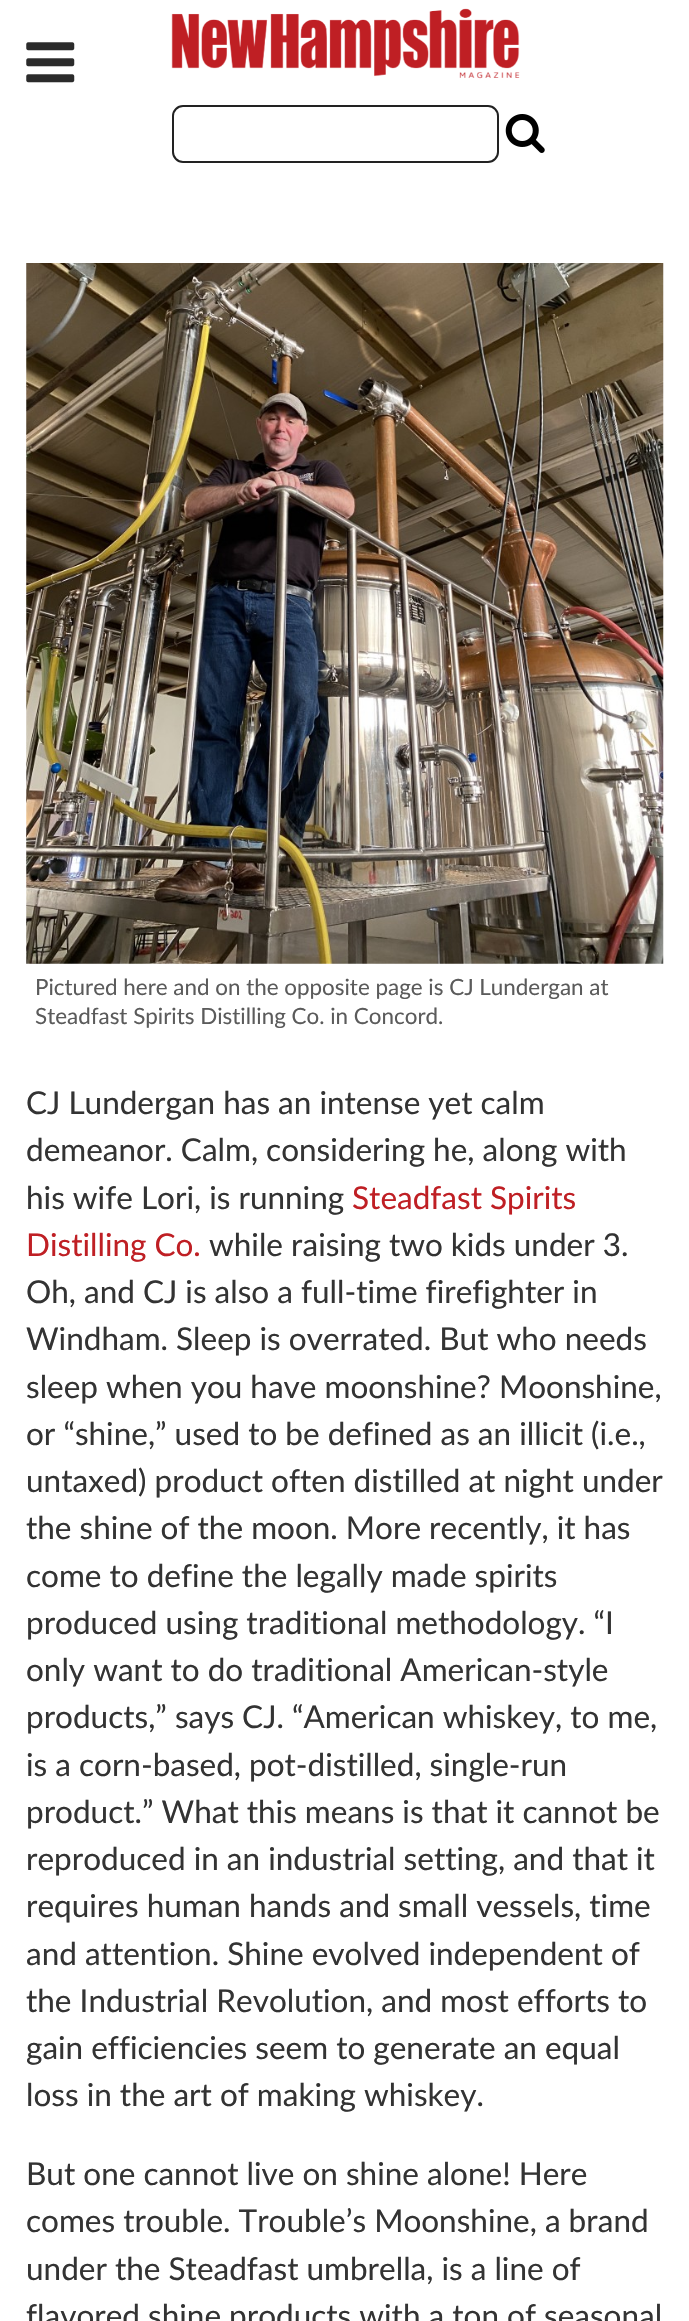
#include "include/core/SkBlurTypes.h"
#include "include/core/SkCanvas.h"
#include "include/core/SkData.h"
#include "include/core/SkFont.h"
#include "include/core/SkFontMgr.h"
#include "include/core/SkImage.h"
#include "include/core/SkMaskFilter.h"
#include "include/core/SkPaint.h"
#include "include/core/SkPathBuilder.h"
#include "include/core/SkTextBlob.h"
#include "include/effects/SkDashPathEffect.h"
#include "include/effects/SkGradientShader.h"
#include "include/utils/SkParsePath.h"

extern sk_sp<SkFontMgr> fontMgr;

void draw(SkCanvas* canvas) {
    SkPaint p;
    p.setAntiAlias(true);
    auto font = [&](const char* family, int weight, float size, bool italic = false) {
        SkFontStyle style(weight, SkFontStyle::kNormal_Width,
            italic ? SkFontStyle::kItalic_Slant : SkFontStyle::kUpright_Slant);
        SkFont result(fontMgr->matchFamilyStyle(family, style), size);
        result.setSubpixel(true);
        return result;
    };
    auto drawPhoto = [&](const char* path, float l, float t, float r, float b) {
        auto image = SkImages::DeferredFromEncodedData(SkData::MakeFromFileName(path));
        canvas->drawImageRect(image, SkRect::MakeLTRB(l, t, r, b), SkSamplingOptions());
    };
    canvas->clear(0xFFFFFFFF);
    drawPhoto("media/1.png", 26, 42, 75, 83);
    drawPhoto("media/2.png", 171, 8, 520, 79);
    p.setStyle(SkPaint::kStroke_Style);
    p.setStrokeWidth(2);
    p.setColor(0xFF222222);
    canvas->drawRoundRect(SkRect::MakeLTRB(173, 106, 498, 162), 10, 10, p);
    drawPhoto("media/3.png", 505, 114, 545, 153);
    drawPhoto("media/4.png", 26, 263, 664, 964);
    auto font1 = font("Lato", 400, 22.4f);
    p.setStyle(SkPaint::kFill_Style);
    p.setColor(0xFF5B5B5B);
    canvas->drawString("Pictured here and on the opposite page is CJ Lundergan at", 35, 995, font1, p);
    canvas->drawString("Steadfast Spirits Distilling Co. in Concord.", 35, 1024, font1, p);
    auto font2 = font("Lato", 400, 31.5f);
    p.setColor(0xFF333333);
    {
        const struct { const char* s; float x, y; } items[] = {
            {"CJ Lundergan has an intense yet calm", 26, 1114},
            {"demeanor. Calm, considering he, along with", 26, 1161},
            {"his wife Lori, is running", 26, 1209},
        };
        for (auto [s, x, y] : items) {
            canvas->drawString(s, x, y, font2, p);
        }
    }
    p.setColor(0xFFBF1F24);
    canvas->drawString("Steadfast Spirits", 352, 1209, font2, p);
    canvas->drawString("Distilling Co.", 26, 1256, font2, p);
    p.setColor(0xFF333333);
    {
        const struct { const char* s; float x, y; } items[] = {
            {"while raising two kids under 3.", 209, 1256},
            {"Oh, and CJ is also a full-time firefighter in", 26, 1303},
            {"Windham. Sleep is overrated. But who needs", 26, 1350},
            {"sleep when you have moonshine? Moonshine,", 26, 1398},
            {"or “shine,” used to be defined as an illicit (i.e.,", 26, 1445},
            {"untaxed) product often distilled at night under", 26, 1492},
            {"the shine of the moon. More recently, it has", 26, 1539},
            {"come to define the legally made spirits", 26, 1587},
            {"produced using traditional methodology. “I", 26, 1634},
            {"only want to do traditional American-style", 26, 1681},
            {"products,” says CJ. “American whiskey, to me,", 26, 1728},
            {"is a corn-based, pot-distilled, single-run", 26, 1776},
            {"product.” What this means is that it cannot be", 26, 1823},
            {"reproduced in an industrial setting, and that it", 26, 1870},
            {"requires human hands and small vessels, time", 26, 1917},
            {"and attention. Shine evolved independent of", 26, 1965},
            {"the Industrial Revolution, and most efforts to", 26, 2012},
            {"gain efficiencies seem to generate an equal", 26, 2059},
            {"loss in the art of making whiskey.", 26, 2106},
            {"But one cannot live on shine alone! Here", 26, 2185},
            {"comes trouble. Trouble’s Moonshine, a brand", 26, 2232},
            {"under the Steadfast umbrella, is a line of", 26, 2280},
            {"flavored shine products with a ton of seasonal", 26, 2327},
        };
        for (auto [s, x, y] : items) {
            canvas->drawString(s, x, y, font2, p);
        }
    }
}
